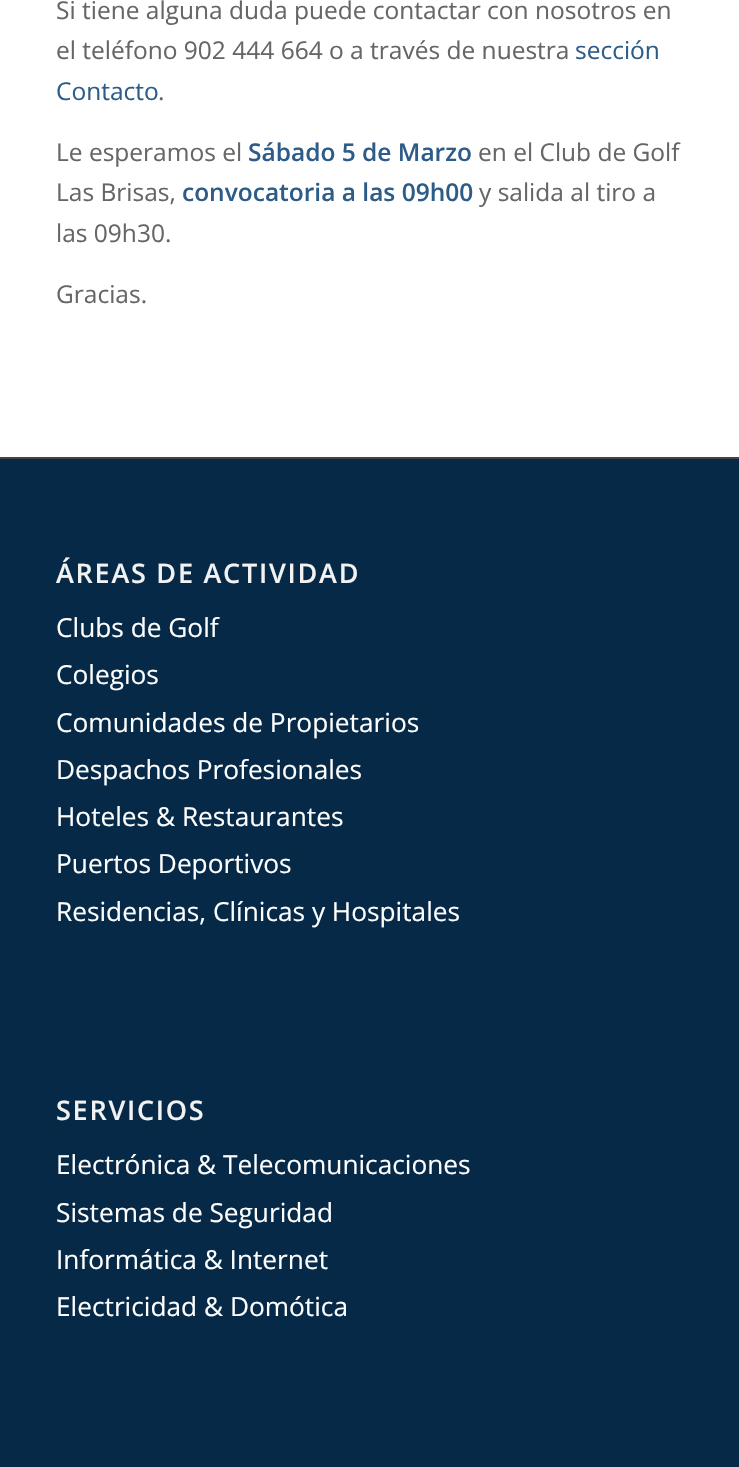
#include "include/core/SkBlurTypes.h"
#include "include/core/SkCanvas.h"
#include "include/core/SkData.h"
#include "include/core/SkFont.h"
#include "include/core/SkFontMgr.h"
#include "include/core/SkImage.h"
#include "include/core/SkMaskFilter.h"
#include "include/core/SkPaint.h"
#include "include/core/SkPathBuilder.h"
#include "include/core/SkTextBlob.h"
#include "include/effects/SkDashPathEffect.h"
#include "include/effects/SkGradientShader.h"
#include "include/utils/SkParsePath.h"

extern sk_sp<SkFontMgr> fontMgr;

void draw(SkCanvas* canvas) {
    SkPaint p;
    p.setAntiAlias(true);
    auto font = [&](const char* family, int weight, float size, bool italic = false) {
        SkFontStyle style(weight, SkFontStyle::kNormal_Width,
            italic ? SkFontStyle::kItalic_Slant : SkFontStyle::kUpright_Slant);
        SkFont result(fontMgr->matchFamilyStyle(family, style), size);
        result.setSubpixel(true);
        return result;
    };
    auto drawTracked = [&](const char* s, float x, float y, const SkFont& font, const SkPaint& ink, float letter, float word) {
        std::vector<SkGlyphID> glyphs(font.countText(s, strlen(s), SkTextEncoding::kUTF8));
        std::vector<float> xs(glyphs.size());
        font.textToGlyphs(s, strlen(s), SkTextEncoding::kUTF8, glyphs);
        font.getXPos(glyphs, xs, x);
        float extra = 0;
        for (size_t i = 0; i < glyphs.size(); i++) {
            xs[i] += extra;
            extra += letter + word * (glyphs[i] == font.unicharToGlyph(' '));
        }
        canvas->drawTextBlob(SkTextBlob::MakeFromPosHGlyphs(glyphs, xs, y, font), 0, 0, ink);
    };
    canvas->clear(0xFFFFFFFF);
    auto font1 = font("Open Sans", 400, 24.5f);
    p.setColor(0xFF666666);
    canvas->drawString("Si tiene alguna duda puede contactar con nosotros en", 56, 19, font1, p);
    canvas->drawString("el teléfono 902 444 664 o a través de nuestra", 56, 59, font1, p);
    p.setColor(0xFF2D5C88);
    canvas->drawString("sección", 575, 59, font1, p);
    canvas->drawString("Contacto", 56, 100, font1, p);
    p.setColor(0xFF666666);
    canvas->drawString(".", 158, 100, font1, p);
    canvas->drawString("Le esperamos el", 56, 161, font1, p);
    auto font2 = font("Open Sans", 600, 24.5f);
    p.setColor(0xFF2D5C88);
    canvas->drawString("Sábado 5 de Marzo", 248, 161, font2, p);
    p.setColor(0xFF666666);
    canvas->drawString("en el Club de Golf", 478, 161, font1, p);
    canvas->drawString("Las Brisas,", 56, 201, font1, p);
    p.setColor(0xFF2D5C88);
    canvas->drawString("convocatoria a las 09h00", 182, 201, font2, p);
    p.setColor(0xFF666666);
    {
        const struct { const char* s; float x, y; } items[] = {
            {"y salida al tiro a", 479, 201},
            {"las 09h30.", 56, 242},
            {"Gracias.", 56, 303},
        };
        for (auto [s, x, y] : items) {
            canvas->drawString(s, x, y, font1, p);
        }
    }
    p.setColor(0xFF052947);
    canvas->drawRect(SkRect::MakeLTRB(0, 459, 739, 1467), p);
    p.setColor(0xFF444444);
    canvas->drawRect(SkRect::MakeLTRB(0, 457, 739, 459), p);
    auto font3 = font("Open Sans", 600, 27);
    p.setColor(0xFFF2F2F2);
    drawTracked("ÁREAS DE ACTIVIDAD", 56, 583, font3, p, 1.75f, 0);
    auto font4 = font("Open Sans", 400, 26.25f);
    p.setColor(0xFFFFFFFF);
    {
        const struct { const char* s; float x, y; } items[] = {
            {"Clubs de Golf", 56, 637},
            {"Colegios", 56, 684},
            {"Comunidades de Propietarios", 56, 732},
            {"Despachos Profesionales", 56, 779},
            {"Hoteles & Restaurantes", 56, 826},
            {"Puertos Deportivos", 56, 873},
            {"Residencias, Clínicas y Hospitales", 56, 921},
        };
        for (auto [s, x, y] : items) {
            canvas->drawString(s, x, y, font4, p);
        }
    }
    p.setColor(0xFFF2F2F2);
    drawTracked("SERVICIOS", 56, 1120, font3, p, 1.75f, 0);
    p.setColor(0xFFFFFFFF);
    {
        const struct { const char* s; float x, y; } items[] = {
            {"Electrónica & Telecomunicaciones", 56, 1174},
            {"Sistemas de Seguridad", 56, 1222},
            {"Informática & Internet", 56, 1269},
            {"Electricidad & Domótica", 56, 1316},
        };
        for (auto [s, x, y] : items) {
            canvas->drawString(s, x, y, font4, p);
        }
    }
}
